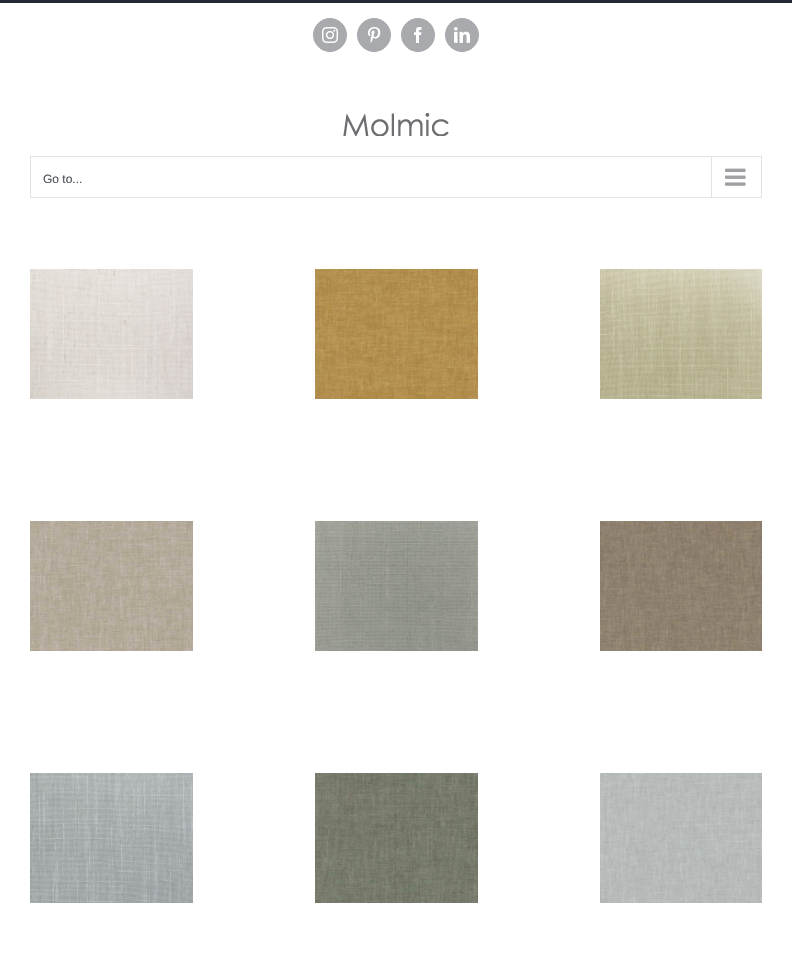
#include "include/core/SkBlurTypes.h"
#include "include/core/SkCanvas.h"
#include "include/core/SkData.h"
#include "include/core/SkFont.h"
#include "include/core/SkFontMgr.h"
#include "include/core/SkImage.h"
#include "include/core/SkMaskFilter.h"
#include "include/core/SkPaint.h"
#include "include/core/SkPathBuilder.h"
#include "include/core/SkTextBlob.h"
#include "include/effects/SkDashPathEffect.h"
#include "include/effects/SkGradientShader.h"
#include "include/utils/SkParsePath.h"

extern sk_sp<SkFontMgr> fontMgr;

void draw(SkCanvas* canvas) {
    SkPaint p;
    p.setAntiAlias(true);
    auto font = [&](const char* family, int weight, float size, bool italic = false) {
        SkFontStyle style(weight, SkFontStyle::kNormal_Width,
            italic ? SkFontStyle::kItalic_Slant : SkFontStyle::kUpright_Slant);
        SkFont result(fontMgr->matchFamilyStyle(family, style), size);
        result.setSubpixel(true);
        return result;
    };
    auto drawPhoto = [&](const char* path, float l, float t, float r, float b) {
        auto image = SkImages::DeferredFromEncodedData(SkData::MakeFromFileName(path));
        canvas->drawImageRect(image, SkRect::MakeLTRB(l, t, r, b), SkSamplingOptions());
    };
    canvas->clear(0xFFFFFFFF);
    p.setColor(0xFF212934);
    canvas->drawRect(SkRect::MakeLTRB(0, 0, 792, 3), p);
    p.setColor(0xFFA8AAAD);
    canvas->drawCircle(330, 35, 16.5f, p);
    p.setStyle(SkPaint::kStroke_Style);
    p.setStrokeWidth(1);
    canvas->drawCircle(330, 35, 16.5f, p);
    drawPhoto("media/1.png", 322, 27, 338, 43);
    p.setStyle(SkPaint::kFill_Style);
    canvas->drawCircle(374, 35, 16.5f, p);
    p.setStyle(SkPaint::kStroke_Style);
    canvas->drawCircle(374, 35, 16.5f, p);
    drawPhoto("media/2.png", 367, 27, 381, 43);
    p.setStyle(SkPaint::kFill_Style);
    canvas->drawCircle(418, 35, 16.5f, p);
    p.setStyle(SkPaint::kStroke_Style);
    canvas->drawCircle(418, 35, 16.5f, p);
    drawPhoto("media/3.png", 414, 27, 422, 43);
    p.setStyle(SkPaint::kFill_Style);
    canvas->drawCircle(462, 35, 16.5f, p);
    p.setStyle(SkPaint::kStroke_Style);
    canvas->drawCircle(462, 35, 16.5f, p);
    drawPhoto("media/4.png", 454, 27, 470, 43);
    drawPhoto("media/5.png", 343, 113, 449, 136);
    p.setColor(0xFFE2E2E2);
    canvas->drawRect(SkRect::MakeLTRB(30.5f, 156.5f, 761.5f, 197.5f), p);
    auto font1 = font("Liberation Sans", 400, 12);
    p.setStyle(SkPaint::kFill_Style);
    p.setColor(0xFF4A4E57);
    canvas->drawString("Go to...", 43, 183, font1, p);
    p.setColor(0xFFE2E2E2);
    canvas->drawRect(SkRect::MakeLTRB(711, 157, 712, 197), p);
    drawPhoto("media/6.png", 725, 168, 746, 186);
    drawPhoto("media/7.png", 30, 269, 193, 399);
    drawPhoto("media/8.png", 315, 269, 478, 399);
    drawPhoto("media/9.png", 600, 269, 762, 399);
    drawPhoto("media/10.png", 30, 521, 193, 651);
    drawPhoto("media/11.png", 315, 521, 478, 651);
    drawPhoto("media/12.png", 600, 521, 762, 651);
    drawPhoto("media/13.png", 30, 773, 193, 903);
    drawPhoto("media/14.png", 315, 773, 478, 903);
    drawPhoto("media/15.png", 600, 773, 762, 903);
}
